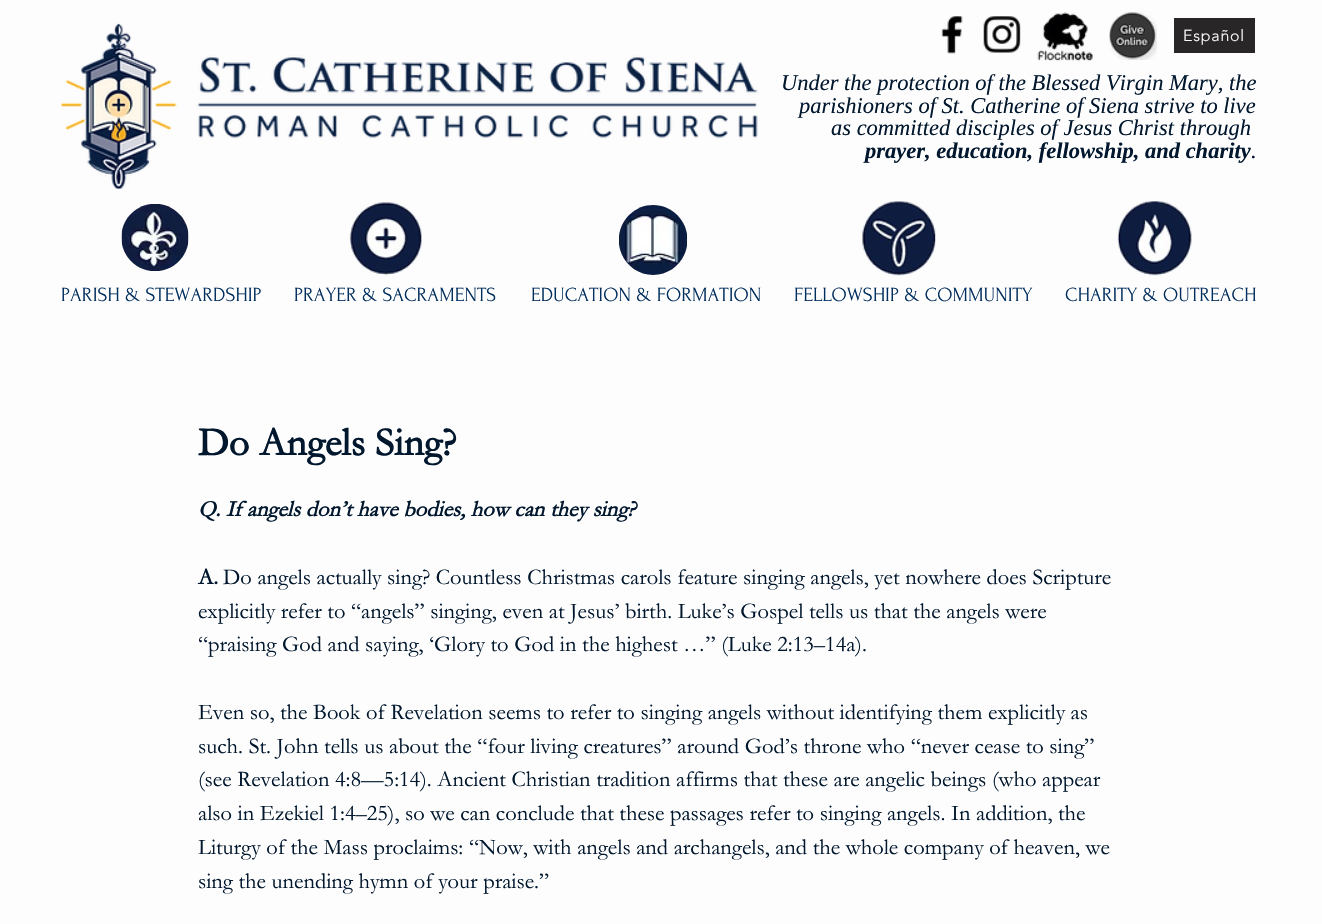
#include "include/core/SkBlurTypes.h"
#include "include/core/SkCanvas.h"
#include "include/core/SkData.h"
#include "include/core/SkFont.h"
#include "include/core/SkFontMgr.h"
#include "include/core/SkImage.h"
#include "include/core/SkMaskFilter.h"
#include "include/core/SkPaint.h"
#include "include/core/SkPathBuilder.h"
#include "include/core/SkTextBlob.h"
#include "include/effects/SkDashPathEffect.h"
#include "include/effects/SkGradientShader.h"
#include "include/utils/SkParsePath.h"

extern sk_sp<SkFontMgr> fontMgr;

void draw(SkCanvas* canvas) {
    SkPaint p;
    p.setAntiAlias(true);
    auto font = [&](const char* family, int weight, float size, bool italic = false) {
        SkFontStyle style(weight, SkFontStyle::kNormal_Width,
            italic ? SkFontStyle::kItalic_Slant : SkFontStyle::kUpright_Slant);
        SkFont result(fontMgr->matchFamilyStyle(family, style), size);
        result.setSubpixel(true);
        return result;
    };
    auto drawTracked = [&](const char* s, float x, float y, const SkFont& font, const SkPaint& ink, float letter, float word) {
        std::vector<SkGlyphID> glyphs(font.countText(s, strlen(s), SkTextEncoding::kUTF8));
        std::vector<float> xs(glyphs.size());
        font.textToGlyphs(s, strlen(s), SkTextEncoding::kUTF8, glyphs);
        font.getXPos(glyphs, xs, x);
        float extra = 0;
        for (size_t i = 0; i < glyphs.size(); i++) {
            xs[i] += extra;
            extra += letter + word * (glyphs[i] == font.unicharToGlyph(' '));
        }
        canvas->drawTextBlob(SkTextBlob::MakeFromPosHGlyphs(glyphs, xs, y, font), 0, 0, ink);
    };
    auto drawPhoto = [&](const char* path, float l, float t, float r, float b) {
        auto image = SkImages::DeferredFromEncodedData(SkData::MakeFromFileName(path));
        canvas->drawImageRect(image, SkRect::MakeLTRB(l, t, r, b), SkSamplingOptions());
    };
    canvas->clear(0xFFFEFDFD);
    drawPhoto("media/1.png", 61, 23, 758, 189);
    drawPhoto("media/2.png", 941, 16, 963, 54);
    drawPhoto("media/3.png", 983, 16, 1021, 53);
    drawPhoto("media/4.png", 1037, 12, 1094, 61);
    drawPhoto("media/5.png", 1109, 12, 1157, 60);
    p.setColor(0xFF282626);
    canvas->drawRect(SkRect::MakeLTRB(1174, 18, 1255, 53), p);
    auto font1 = font("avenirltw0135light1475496", 300, 16);
    p.setColor(0xFFFEFDFD);
    drawTracked("Español", 1183, 41, font1, p, 0.75f, 0);
    auto font2 = font("Liberation Serif", 400, 22.5f, true);
    p.setColor(0xFF00172E);
    {
        const struct { const char* s; float x, y; } items[] = {
            {"Under the protection of the Blessed Virgin Mary, the", 781, 90},
            {"parishioners of St. Catherine of Siena strive to live", 799, 113},
            {"as committed disciples of Jesus Christ through", 831, 135},
        };
        for (auto [s, x, y] : items) {
            canvas->drawString(s, x, y, font2, p);
        }
    }
    auto font3 = font("Liberation Serif", 700, 22.5f, true);
    canvas->drawString("prayer, education, fellowship, and charity", 865, 158, font3, p);
    canvas->drawString(".", 1251, 158, font2, p);
    drawPhoto("media/6.png", 121, 204, 189, 271);
    drawPhoto("media/7.png", 349, 202, 422, 276);
    drawPhoto("media/8.png", 619, 205, 688, 275);
    drawPhoto("media/9.png", 862, 201, 936, 276);
    drawPhoto("media/10.png", 1117, 201, 1192, 276);
    auto font4 = font("Forum", 400, 20);
    p.setColor(0xFF002E5D);
    {
        const struct { const char* s; float x, y; } items[] = {
            {"PARISH & STEWARDSHIP", 61, 301},
            {"PRAYER & SACRAMENTS", 294, 301},
            {"EDUCATION & FORMATION", 531, 301},
            {"FELLOWSHIP & COMMUNITY", 794, 301},
            {"CHARITY & OUTREACH", 1065, 301},
        };
        for (auto [s, x, y] : items) {
            canvas->drawString(s, x, y, font4, p);
        }
    }
    auto font5 = font("Garamond", 700, 40);
    p.setColor(0xFF00172E);
    canvas->drawString("Do Angels Sing?", 198, 455, font5, p);
    auto font6 = font("Garamond", 700, 22.5f, true);
    canvas->drawString("Q. If angels don’t have bodies, how can they sing?", 198, 516, font6, p);
    auto font7 = font("Garamond", 700, 22.5f);
    canvas->drawString("A.", 198, 584, font7, p);
    auto font8 = font("Garamond", 400, 22.5f);
    {
        const struct { const char* s; float x, y; } items[] = {
            {"Do angels actually sing? Countless Christmas carols feature singing angels, yet nowhere does Scripture", 223, 584},
            {"explicitly refer to “angels” singing, even at Jesus’ birth. Luke’s Gospel tells us that the angels were", 198, 618},
            {"“praising God and saying, ‘Glory to God in the highest …” (Luke 2:13–14a).", 198, 651},
            {"Even so, the Book of Revelation seems to refer to singing angels without identifying them explicitly as", 198, 719},
            {"such. St. John tells us about the “four living creatures” around God’s throne who “never cease to sing”", 198, 753},
            {"(see Revelation 4:8—5:14). Ancient Christian tradition affirms that these are angelic beings (who appear", 198, 786},
            {"also in Ezekiel 1:4–25), so we can conclude that these passages refer to singing angels. In addition, the", 198, 820},
            {"Liturgy of the Mass proclaims: “Now, with angels and archangels, and the whole company of heaven, we", 198, 854},
            {"sing the unending hymn of your praise.”", 198, 888},
        };
        for (auto [s, x, y] : items) {
            canvas->drawString(s, x, y, font8, p);
        }
    }
}
